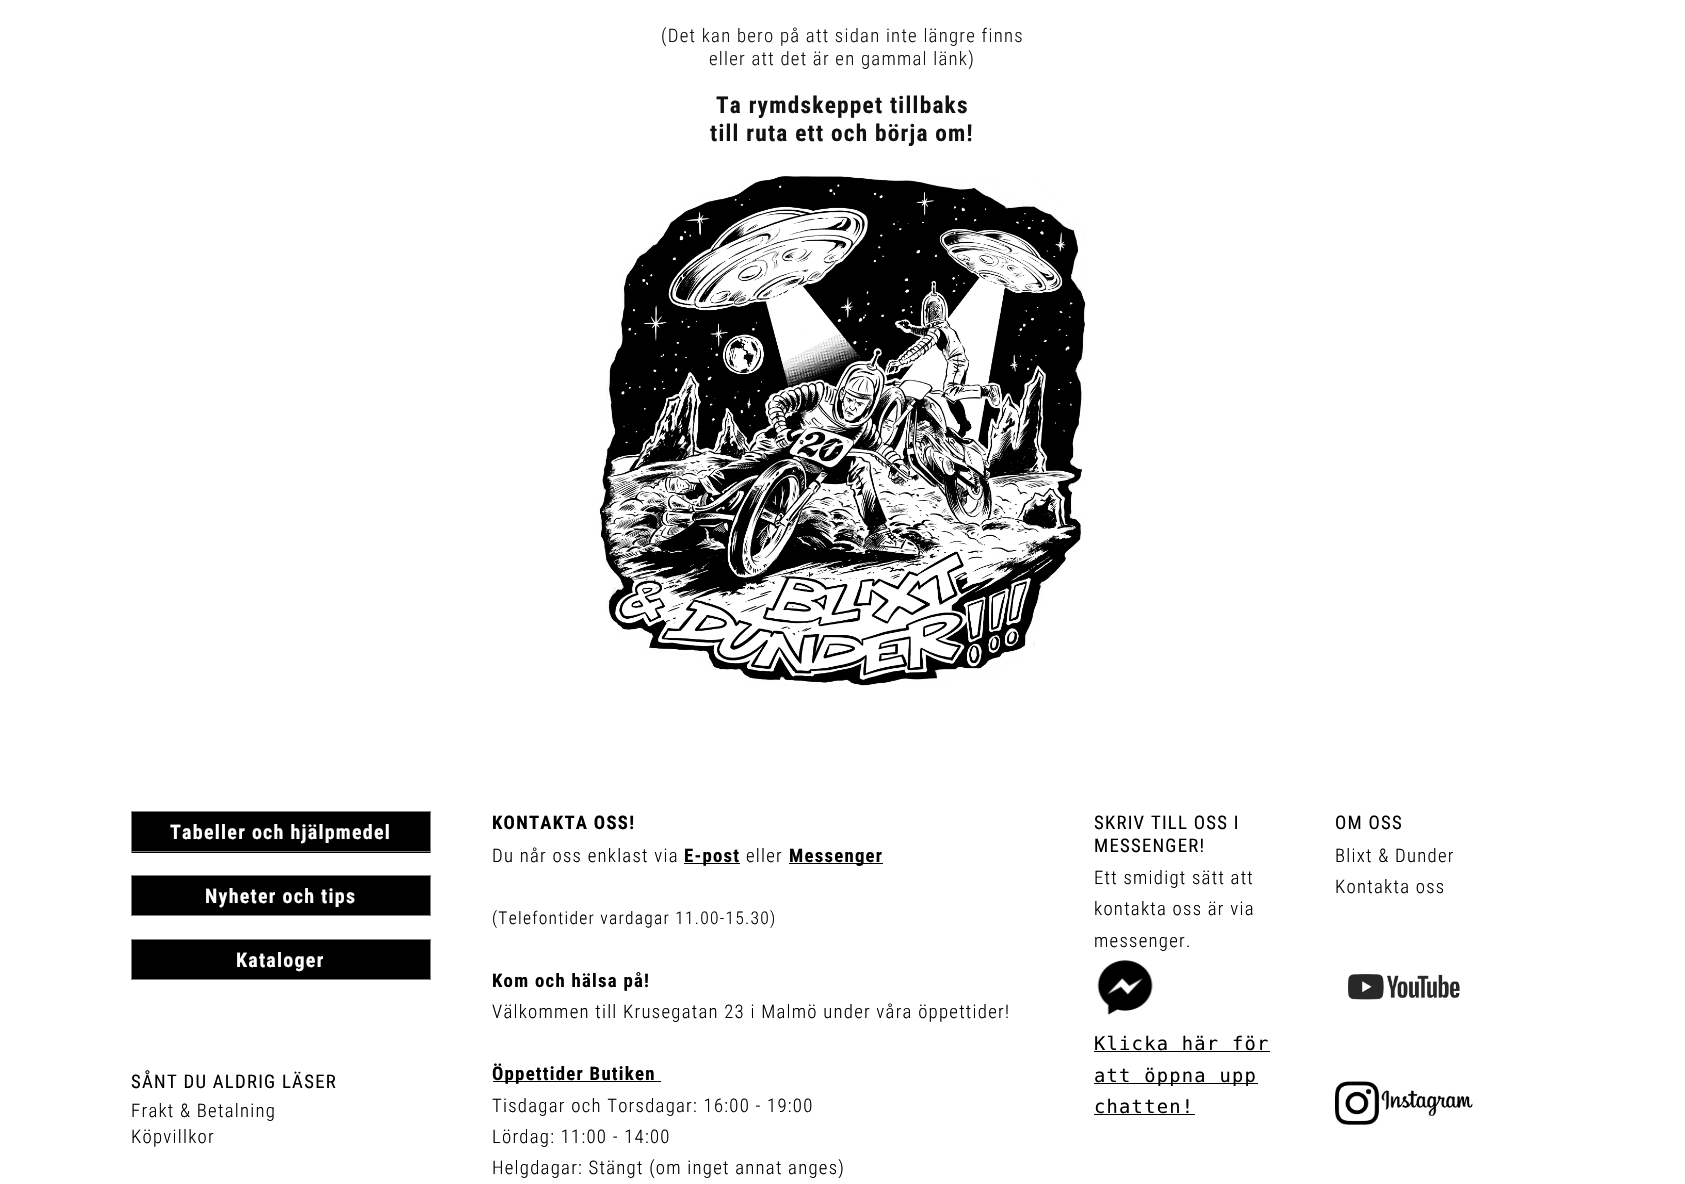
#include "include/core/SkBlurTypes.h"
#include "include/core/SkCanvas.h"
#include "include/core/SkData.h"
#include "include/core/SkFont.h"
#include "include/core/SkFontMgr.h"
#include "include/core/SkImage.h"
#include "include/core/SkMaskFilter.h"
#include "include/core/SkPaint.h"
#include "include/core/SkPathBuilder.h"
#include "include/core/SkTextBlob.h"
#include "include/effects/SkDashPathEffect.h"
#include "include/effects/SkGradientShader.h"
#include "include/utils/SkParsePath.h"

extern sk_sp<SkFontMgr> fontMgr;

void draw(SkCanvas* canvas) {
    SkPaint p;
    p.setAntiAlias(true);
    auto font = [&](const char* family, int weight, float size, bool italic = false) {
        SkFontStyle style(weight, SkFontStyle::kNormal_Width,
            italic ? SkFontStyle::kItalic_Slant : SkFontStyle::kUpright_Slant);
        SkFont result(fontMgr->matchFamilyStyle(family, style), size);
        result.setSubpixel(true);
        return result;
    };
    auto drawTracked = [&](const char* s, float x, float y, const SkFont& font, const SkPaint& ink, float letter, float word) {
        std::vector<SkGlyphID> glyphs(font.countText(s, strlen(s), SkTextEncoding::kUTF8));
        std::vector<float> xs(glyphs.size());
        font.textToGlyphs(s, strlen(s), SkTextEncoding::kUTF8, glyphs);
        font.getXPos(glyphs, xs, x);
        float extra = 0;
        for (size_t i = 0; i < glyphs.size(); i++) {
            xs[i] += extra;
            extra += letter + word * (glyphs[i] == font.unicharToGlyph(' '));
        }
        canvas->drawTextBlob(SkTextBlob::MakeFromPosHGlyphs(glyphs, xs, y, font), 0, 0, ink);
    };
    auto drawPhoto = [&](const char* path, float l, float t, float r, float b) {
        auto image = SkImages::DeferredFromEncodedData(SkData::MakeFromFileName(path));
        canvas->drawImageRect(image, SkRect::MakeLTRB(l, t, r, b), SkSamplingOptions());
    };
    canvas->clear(0xFFFFFFFF);
    auto font1 = font("Roboto Condensed", 300, 18.75f);
    p.setColor(0xFF111111);
    drawTracked("(Det kan bero på att sidan inte längre finns", 661, 42, font1, p, 1.25f, 0);
    drawTracked("eller att det är en gammal länk)", 709, 65, font1, p, 1.25f, 0);
    auto font2 = font("Roboto Condensed", 700, 23.25f);
    drawTracked("Ta rymdskeppet tillbaks", 716, 113, font2, p, 1.25f, 0);
    drawTracked("till ruta ett och börja om!", 710, 141, font2, p, 1.25f, 0);
    drawPhoto("media/1.png", 599, 176, 1086, 686);
    {
        const struct { float l, t, r, b; SkColor color; } items[] = {
            {132, 812, 430, 853, 0xFF000000},
            {131, 811, 431, 812, 0xFF808080},
            {430, 811, 431, 853, 0xFF808080},
            {131, 851, 431, 852, 0xFF808080},
            {131, 811, 132, 853, 0xFF808080},
        };
        for (auto [l, t, r, b, color] : items) {
            p.setColor(color);
            canvas->drawRect(SkRect::MakeLTRB(l, t, r, b), p);
        }
    }
    auto font3 = font("Roboto Condensed", 700, 20);
    p.setColor(0xFFFFFFFF);
    drawTracked("Tabeller och hjälpmedel", 170, 839, font3, p, 1.25f, 0);
    {
        const struct { float l, t, r, b; SkColor color; } items[] = {
            {132, 876, 430, 915, 0xFF000000},
            {131, 875, 431, 876, 0xFF808080},
            {430, 875, 431, 916, 0xFF808080},
            {131, 915, 431, 916, 0xFF808080},
            {131, 875, 132, 916, 0xFF808080},
        };
        for (auto [l, t, r, b, color] : items) {
            p.setColor(color);
            canvas->drawRect(SkRect::MakeLTRB(l, t, r, b), p);
        }
    }
    p.setColor(0xFFFFFFFF);
    drawTracked("Nyheter och tips", 205, 903, font3, p, 1.25f, 0);
    {
        const struct { float l, t, r, b; SkColor color; } items[] = {
            {132, 940, 430, 979, 0xFF000000},
            {131, 939, 431, 940, 0xFF808080},
            {430, 939, 431, 980, 0xFF808080},
            {131, 979, 431, 980, 0xFF808080},
            {131, 939, 132, 980, 0xFF808080},
        };
        for (auto [l, t, r, b, color] : items) {
            p.setColor(color);
            canvas->drawRect(SkRect::MakeLTRB(l, t, r, b), p);
        }
    }
    p.setColor(0xFFFFFFFF);
    drawTracked("Kataloger", 236, 967, font3, p, 1.25f, 0);
    auto font4 = font("Roboto Condensed", 400, 18.75f);
    p.setColor(0xFF000000);
    drawTracked("SÅNT DU ALDRIG LÄSER", 131, 1088, font4, p, 1.25f, 0);
    drawTracked("Frakt & Betalning", 131, 1117, font1, p, 1.25f, 0);
    drawTracked("Köpvillkor", 131, 1143, font1, p, 1.25f, 0);
    auto font5 = font("Roboto Condensed", 700, 18.75f);
    drawTracked("KONTAKTA OSS!", 492, 829, font5, p, 1.25f, 0);
    drawTracked("Du når oss enklast via", 492, 862, font1, p, 1.25f, 0);
    canvas->drawRect(SkRect::MakeLTRB(684, 863, 740, 864), p);
    drawTracked("E-post", 684, 862, font5, p, 1.25f, 0);
    drawTracked("eller", 746, 862, font1, p, 1.25f, 0);
    canvas->drawRect(SkRect::MakeLTRB(789, 863, 883, 864), p);
    drawTracked("Messenger", 789, 862, font5, p, 1.25f, 0);
    auto font6 = font("Roboto Condensed", 300, 17.5f);
    drawTracked("(Telefontider vardagar 11.00-15.30)", 492, 924, font6, p, 1.25f, 0);
    drawTracked("Kom och hälsa på!", 492, 987, font5, p, 1.25f, 0);
    drawTracked("Välkommen till Krusegatan 23 i Malmö under våra öppettider!", 492, 1018, font1, p, 1.25f, 0);
    canvas->drawRect(SkRect::MakeLTRB(493, 1081, 661, 1082), p);
    drawTracked("Öppettider Butiken", 492, 1080, font5, p, 1.25f, 0);
    {
        const struct { const char* s; float x, y; } items[] = {
            {"Tisdagar och Torsdagar: 16:00 - 19:00", 492, 1112},
            {"Lördag: 11:00 - 14:00", 492, 1143},
            {"Helgdagar: Stängt (om inget annat anges)", 492, 1174},
        };
        for (auto [s, x, y] : items) {
            drawTracked(s, x, y, font1, p, 1.25f, 0);
        }
    }
    drawTracked("SKRIV TILL OSS I", 1094, 829, font4, p, 1.25f, 0);
    drawTracked("MESSENGER!", 1094, 852, font4, p, 1.25f, 0);
    {
        const struct { const char* s; float x, y; } items[] = {
            {"Ett smidigt sätt att", 1094, 884},
            {"kontakta oss är via", 1094, 915},
            {"messenger.", 1094, 947},
        };
        for (auto [s, x, y] : items) {
            drawTracked(s, x, y, font1, p, 1.25f, 0);
        }
    }
    drawPhoto("media/2.png", 1097, 960, 1153, 1015);
    auto font7 = font("DejaVu Sans Mono", 400, 18.75f);
    drawTracked("Klicka här för", 1094, 1050, font7, p, 1.25f, 0);
    canvas->drawRect(SkRect::MakeLTRB(1094, 1051, 1270, 1052), p);
    canvas->drawRect(SkRect::MakeLTRB(1094, 1083, 1258, 1084), p);
    drawTracked("att öppna upp", 1094, 1082, font7, p, 1.25f, 0);
    drawTracked("chatten!", 1094, 1113, font7, p, 1.25f, 0);
    canvas->drawRect(SkRect::MakeLTRB(1094, 1114, 1195, 1115), p);
    drawTracked("OM OSS", 1335, 829, font4, p, 1.25f, 0);
    drawTracked("Blixt & Dunder", 1335, 862, font1, p, 1.25f, 0);
    drawTracked("Kontakta oss", 1335, 893, font1, p, 1.25f, 0);
    drawPhoto("media/3.png", 1348, 974, 1460, 1000);
    drawPhoto("media/4.png", 1335, 1081, 1473, 1125);
}
